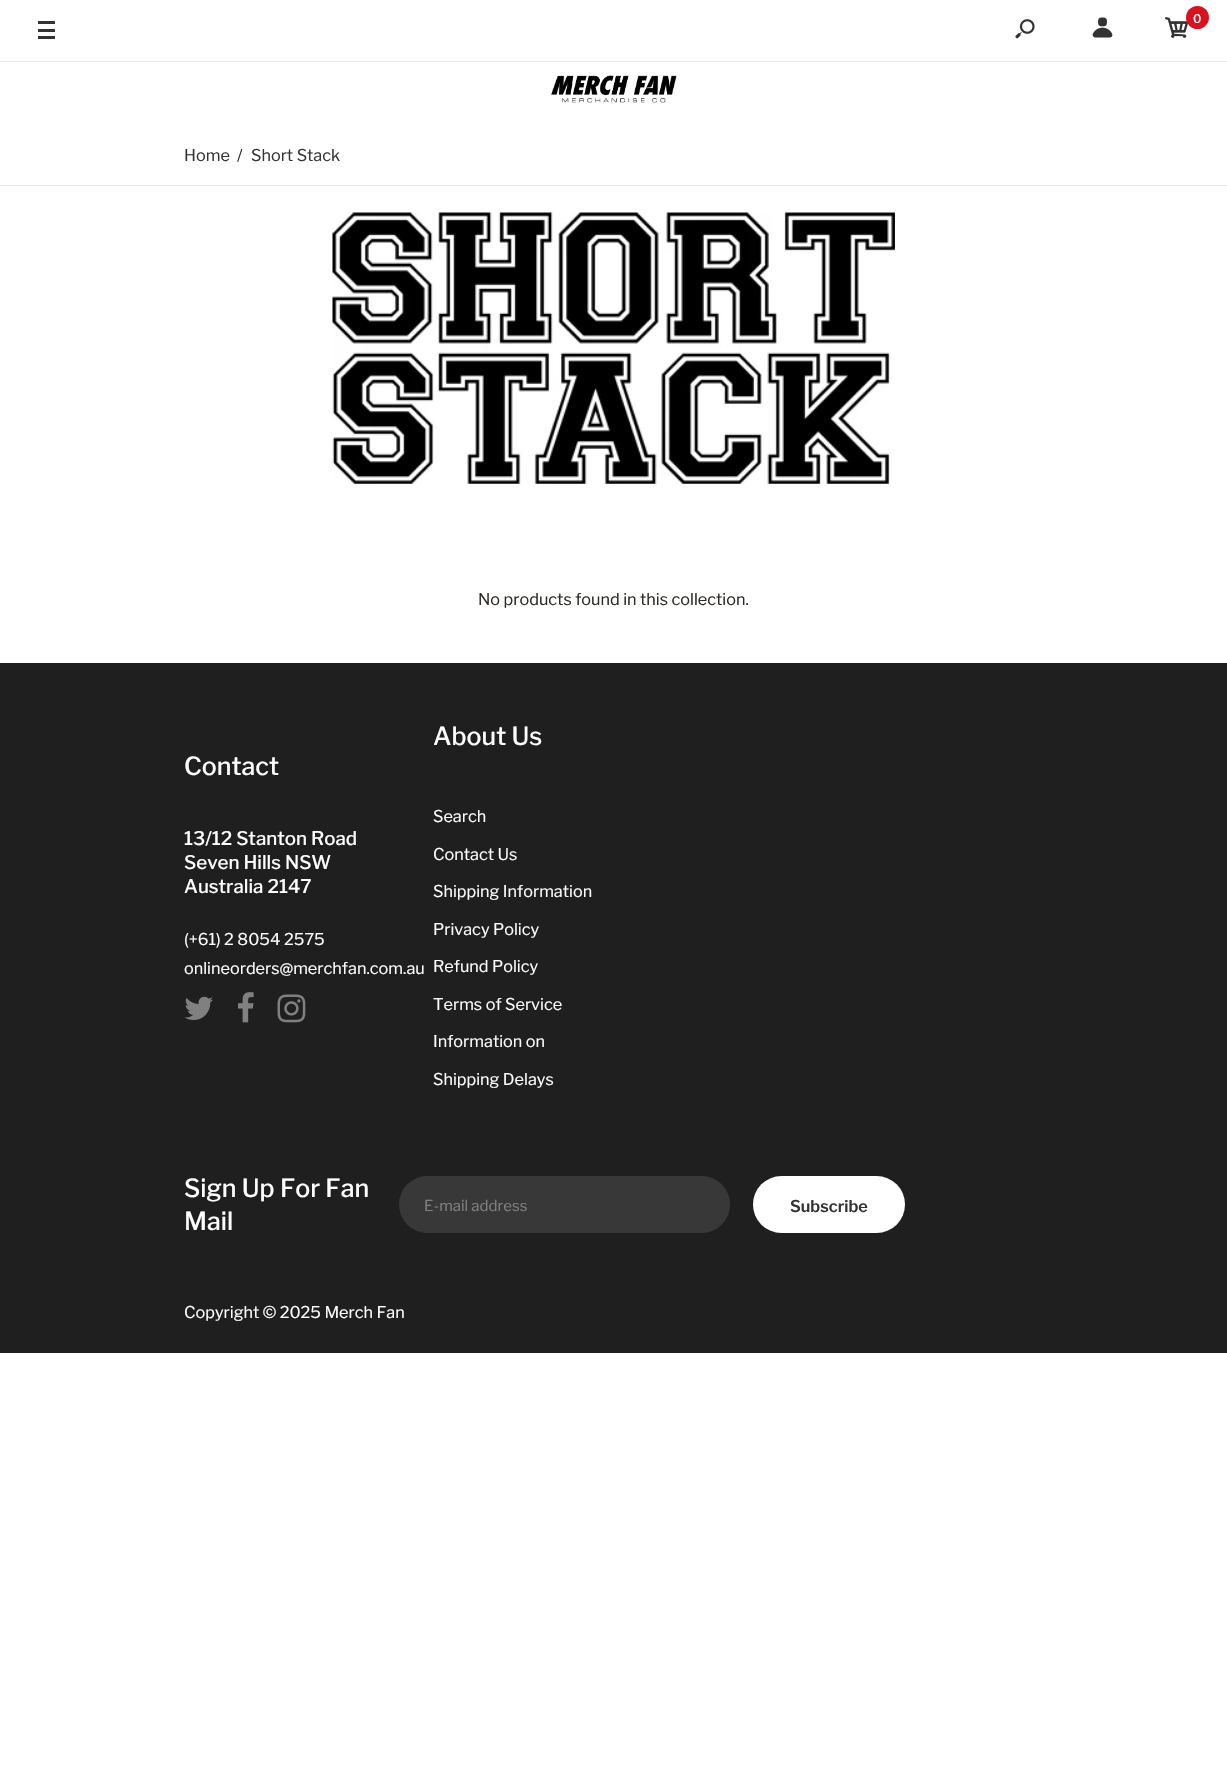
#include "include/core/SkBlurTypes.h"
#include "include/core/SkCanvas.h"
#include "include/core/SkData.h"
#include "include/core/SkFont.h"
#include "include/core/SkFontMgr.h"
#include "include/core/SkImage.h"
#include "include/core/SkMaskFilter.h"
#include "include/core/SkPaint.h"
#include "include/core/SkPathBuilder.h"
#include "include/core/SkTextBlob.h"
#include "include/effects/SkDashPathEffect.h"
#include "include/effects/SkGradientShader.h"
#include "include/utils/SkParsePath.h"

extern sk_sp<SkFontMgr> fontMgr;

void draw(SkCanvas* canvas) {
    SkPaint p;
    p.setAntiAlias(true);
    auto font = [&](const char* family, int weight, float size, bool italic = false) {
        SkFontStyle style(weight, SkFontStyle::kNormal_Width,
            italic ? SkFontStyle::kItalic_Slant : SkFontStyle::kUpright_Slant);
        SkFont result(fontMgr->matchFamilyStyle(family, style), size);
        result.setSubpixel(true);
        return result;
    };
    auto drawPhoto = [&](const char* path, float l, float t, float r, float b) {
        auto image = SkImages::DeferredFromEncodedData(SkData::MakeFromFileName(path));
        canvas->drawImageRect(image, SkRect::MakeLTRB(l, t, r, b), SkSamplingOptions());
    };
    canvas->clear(0xFFFFFFFF);
    {
        const struct { float l, t, r, b; SkColor color; } items[] = {
            {0, 61, 1227, 62, 0xFFE7E7E7},
            {38, 29, 55, 32, 0xFF333333},
            {38, 21, 55, 24, 0xFF333333},
            {38, 36, 55, 39, 0xFF333333},
        };
        for (auto [l, t, r, b, color] : items) {
            p.setColor(color);
            canvas->drawRect(SkRect::MakeLTRB(l, t, r, b), p);
        }
    }
    drawPhoto("media/1.png", 1015, 19, 1035, 39);
    drawPhoto("media/2.png", 1092, 17, 1113, 38);
    drawPhoto("media/3.png", 1165, 17, 1188, 38);
    p.setColor(0xFFD9121F);
    canvas->drawCircle(1197.5f, 17.5f, 11.5f, p);
    auto font1 = font("Libre Franklin", 500, 12);
    p.setColor(0xFFFFFFFF);
    canvas->drawString("0", 1193, 23, font1, p);
    drawPhoto("media/4.png", 551, 75, 677, 103);
    p.setColor(0xFFE5E5E5);
    canvas->drawRect(SkRect::MakeLTRB(0, 185, 1227, 186), p);
    auto font2 = font("Libre Franklin", 400, 16.25f);
    p.setColor(0xFF333333);
    {
        const struct { const char* s; float x, y; } items[] = {
            {"Home", 184, 161},
            {"/", 237, 161},
            {"Short Stack", 251, 161},
        };
        for (auto [s, x, y] : items) {
            canvas->drawString(s, x, y, font2, p);
        }
    }
    drawPhoto("media/5.png", 332, 212, 895, 484);
    p.setColor(0xFF2D2A24);
    canvas->drawString("No products found in this collection.", 478, 605, font2, p);
    p.setColor(0xFF1F1F1F);
    canvas->drawRect(SkRect::MakeLTRB(0, 663, 1227, 1353), p);
    auto font3 = font("Libre Franklin", 500, 25);
    p.setColor(0xFFFFFFFF);
    canvas->drawString("Contact", 184, 775, font3, p);
    auto font4 = font("Libre Franklin", 500, 18.75f);
    {
        const struct { const char* s; float x, y; } items[] = {
            {"13/12 Stanton Road", 184, 845},
            {"Seven Hills NSW", 184, 869},
            {"Australia 2147", 184, 893},
        };
        for (auto [s, x, y] : items) {
            canvas->drawString(s, x, y, font4, p);
        }
    }
    canvas->drawString("(+61) 2 8054 2575", 184, 945, font2, p);
    canvas->drawString("onlineorders@merchfan.com.au", 184, 974, font2, p);
    drawPhoto("media/6.png", 184, 996, 213, 1020);
    drawPhoto("media/7.png", 238, 992, 254, 1023);
    drawPhoto("media/8.png", 277, 994, 306, 1023);
    canvas->drawString("About Us", 433, 745, font3, p);
    {
        const struct { const char* s; float x, y; } items[] = {
            {"Search", 433, 822},
            {"Contact Us", 433, 860},
            {"Shipping Information", 433, 897},
            {"Privacy Policy", 433, 935},
            {"Refund Policy", 433, 972},
            {"Terms of Service", 433, 1010},
            {"Information on", 433, 1047},
            {"Shipping Delays", 433, 1085},
        };
        for (auto [s, x, y] : items) {
            canvas->drawString(s, x, y, font2, p);
        }
    }
    canvas->drawString("Sign Up For Fan", 184, 1197, font3, p);
    canvas->drawString("Mail", 184, 1230, font3, p);
    p.setColor(0xFF383838);
    canvas->drawRoundRect(SkRect::MakeLTRB(399, 1176, 730, 1233), 28.5f, 28.5f, p);
    auto font5 = font("Libre Franklin", 400, 15);
    p.setColor(0xFF808080);
    canvas->drawString("E-mail address", 424, 1211, font5, p);
    p.setColor(0xFFFFFFFF);
    canvas->drawRoundRect(SkRect::MakeLTRB(753, 1176, 905, 1233), 28.5f, 28.5f, p);
    auto font6 = font("Libre Franklin", 600, 16.25f);
    p.setColor(0xFF333333);
    canvas->drawString("Subscribe", 790, 1212, font6, p);
    p.setColor(0xFFFFFFFF);
    canvas->drawString("Copyright © 2025 Merch Fan", 184, 1318, font2, p);
}
